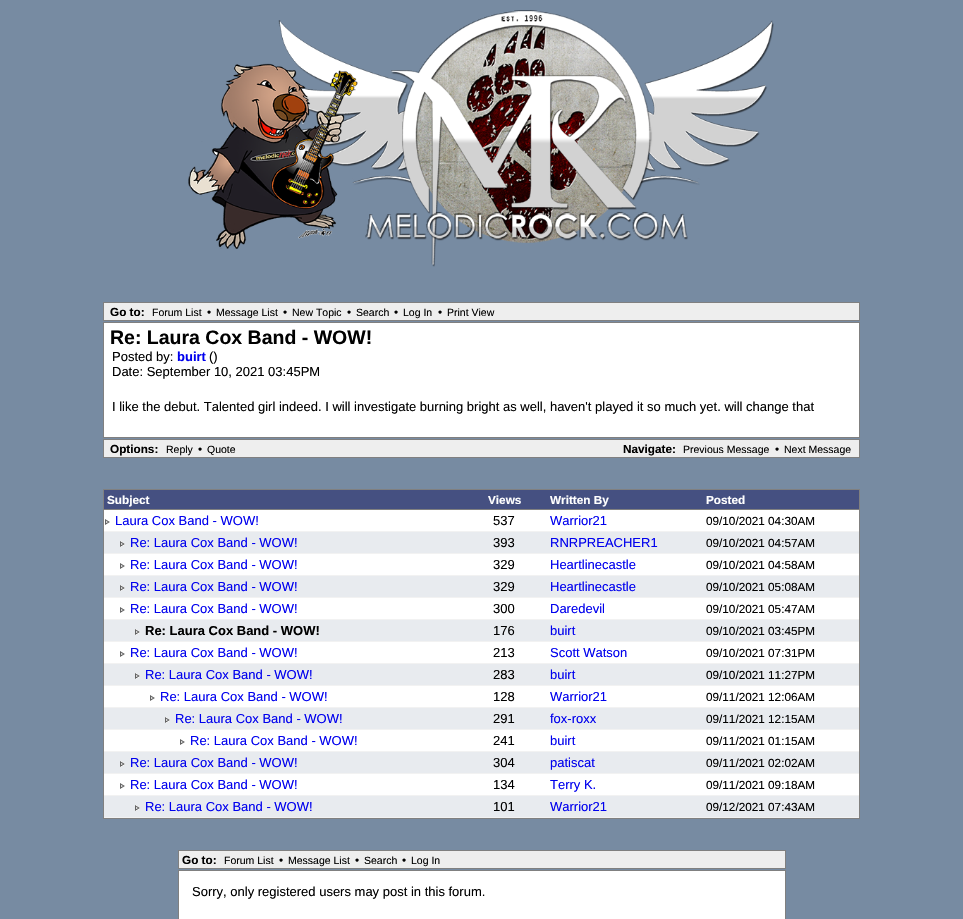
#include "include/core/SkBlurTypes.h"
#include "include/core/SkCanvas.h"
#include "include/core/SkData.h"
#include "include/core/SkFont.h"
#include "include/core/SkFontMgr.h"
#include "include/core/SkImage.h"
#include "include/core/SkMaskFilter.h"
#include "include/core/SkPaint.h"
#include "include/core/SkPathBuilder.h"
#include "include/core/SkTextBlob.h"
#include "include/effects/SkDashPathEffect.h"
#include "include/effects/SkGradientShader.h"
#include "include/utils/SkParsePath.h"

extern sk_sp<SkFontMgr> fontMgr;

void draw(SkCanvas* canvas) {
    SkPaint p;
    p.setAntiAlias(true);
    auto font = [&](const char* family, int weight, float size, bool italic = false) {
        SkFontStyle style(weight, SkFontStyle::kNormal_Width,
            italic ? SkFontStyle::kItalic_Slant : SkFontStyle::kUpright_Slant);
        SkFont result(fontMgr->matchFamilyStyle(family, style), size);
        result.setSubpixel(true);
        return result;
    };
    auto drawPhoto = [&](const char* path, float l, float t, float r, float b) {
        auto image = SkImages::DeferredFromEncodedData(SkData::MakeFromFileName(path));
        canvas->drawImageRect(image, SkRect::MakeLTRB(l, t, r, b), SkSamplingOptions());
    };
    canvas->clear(0xFF778BA2);
    drawPhoto("media/1.png", 188, 10, 774, 267);
    p.setColor(0xFFEEEEEE);
    canvas->drawRect(SkRect::MakeLTRB(103.5f, 302.5f, 859.5f, 320.5f), p);
    p.setStyle(SkPaint::kStroke_Style);
    p.setStrokeWidth(1);
    p.setColor(0xFF808080);
    canvas->drawRect(SkRect::MakeLTRB(103.5f, 302.5f, 859.5f, 320.5f), p);
    auto font1 = font("Liberation Sans", 700, 11.75f);
    p.setStyle(SkPaint::kFill_Style);
    p.setColor(0xFF000000);
    canvas->drawString("Go to:", 110, 316, font1, p);
    auto font2 = font("Liberation Sans", 400, 10.5f);
    canvas->drawString("Forum List", 152, 316, font2, p);
    auto font3 = font("Liberation Sans", 400, 11.75f);
    canvas->drawString("•", 207, 316, font3, p);
    canvas->drawString("Message List", 216, 316, font2, p);
    canvas->drawString("•", 283, 316, font3, p);
    canvas->drawString("New Topic", 292, 316, font2, p);
    canvas->drawString("•", 347, 316, font3, p);
    canvas->drawString("Search", 356, 316, font2, p);
    canvas->drawString("•", 394, 316, font3, p);
    canvas->drawString("Log In", 403, 316, font2, p);
    canvas->drawString("•", 438, 316, font3, p);
    canvas->drawString("Print View", 447, 316, font2, p);
    p.setColor(0xFFFFFFFF);
    canvas->drawRect(SkRect::MakeLTRB(103.5f, 322.5f, 859.5f, 437.5f), p);
    p.setStyle(SkPaint::kStroke_Style);
    p.setColor(0xFF808080);
    canvas->drawRect(SkRect::MakeLTRB(103.5f, 322.5f, 859.5f, 437.5f), p);
    auto font4 = font("Liberation Sans", 700, 19.5f);
    p.setStyle(SkPaint::kFill_Style);
    p.setColor(0xFF000000);
    canvas->drawString("Re: Laura Cox Band - WOW!", 110, 344, font4, p);
    auto font5 = font("Liberation Sans", 400, 13);
    canvas->drawString("Posted by:", 112, 361, font5, p);
    auto font6 = font("Liberation Sans", 700, 13);
    p.setColor(0xFF0000EE);
    canvas->drawString("buirt", 177, 361, font6, p);
    p.setColor(0xFF000000);
    {
        const struct { const char* s; float x, y; } items[] = {
            {"()", 209, 361},
            {"Date: September 10, 2021 03:45PM", 112, 376},
            {"I like the debut. Talented girl indeed. I will investigate burning bright as well, haven't played it so much yet. will change that", 112, 411},
        };
        for (auto [s, x, y] : items) {
            canvas->drawString(s, x, y, font5, p);
        }
    }
    p.setColor(0xFFEEEEEE);
    canvas->drawRect(SkRect::MakeLTRB(103.5f, 439.5f, 859.5f, 457.5f), p);
    p.setStyle(SkPaint::kStroke_Style);
    p.setColor(0xFF808080);
    canvas->drawRect(SkRect::MakeLTRB(103.5f, 439.5f, 859.5f, 457.5f), p);
    p.setStyle(SkPaint::kFill_Style);
    p.setColor(0xFF000000);
    canvas->drawString("Options:", 110, 453, font1, p);
    canvas->drawString("Reply", 166, 453, font2, p);
    canvas->drawString("•", 198, 453, font3, p);
    canvas->drawString("Quote", 207, 453, font2, p);
    canvas->drawString("Navigate:", 623, 453, font1, p);
    canvas->drawString("Previous Message", 683, 453, font2, p);
    canvas->drawString("•", 775, 453, font3, p);
    canvas->drawString("Next Message", 784, 453, font2, p);
    p.setStyle(SkPaint::kStroke_Style);
    p.setColor(0xFF808080);
    canvas->drawRect(SkRect::MakeLTRB(103.5f, 489.5f, 859.5f, 818.5f), p);
    p.setStyle(SkPaint::kFill_Style);
    p.setColor(0xFF455081);
    canvas->drawRect(SkRect::MakeLTRB(104, 490, 859, 509), p);
    p.setColor(0xFF808080);
    canvas->drawRect(SkRect::MakeLTRB(104, 509, 859, 510), p);
    p.setColor(0xFFFFFFFF);
    {
        const struct { const char* s; float x, y; } items[] = {
            {"Subject", 107, 504},
            {"Views", 488, 504},
            {"Written By", 550, 504},
            {"Posted", 706, 504},
        };
        for (auto [s, x, y] : items) {
            canvas->drawString(s, x, y, font1, p);
        }
    }
    canvas->drawRect(SkRect::MakeLTRB(104, 510, 859, 531), p);
    p.setColor(0xFFF2F2F2);
    canvas->drawRect(SkRect::MakeLTRB(104, 531, 859, 532), p);
    drawPhoto("media/2.png", 105, 519, 110, 525);
    p.setColor(0xFF0000EE);
    canvas->drawString("Laura Cox Band - WOW!", 115, 525, font5, p);
    p.setColor(0xFF000000);
    canvas->drawString("537", 493, 525, font5, p);
    p.setColor(0xFF0000EE);
    canvas->drawString("Warrior21", 550, 525, font5, p);
    p.setColor(0xFF000000);
    canvas->drawString("09/10/2021 04:30AM", 706, 525, font3, p);
    p.setColor(0xFFE8EBEF);
    canvas->drawRect(SkRect::MakeLTRB(104, 532, 859, 553), p);
    p.setColor(0xFFF2F2F2);
    canvas->drawRect(SkRect::MakeLTRB(104, 553, 859, 554), p);
    drawPhoto("media/3.png", 120, 541, 125, 547);
    p.setColor(0xFF0000EE);
    canvas->drawString("Re: Laura Cox Band - WOW!", 130, 547, font5, p);
    p.setColor(0xFF000000);
    canvas->drawString("393", 493, 547, font5, p);
    p.setColor(0xFF0000EE);
    canvas->drawString("RNRPREACHER1", 550, 547, font5, p);
    p.setColor(0xFF000000);
    canvas->drawString("09/10/2021 04:57AM", 706, 547, font3, p);
    p.setColor(0xFFFFFFFF);
    canvas->drawRect(SkRect::MakeLTRB(104, 554, 859, 575), p);
    p.setColor(0xFFF2F2F2);
    canvas->drawRect(SkRect::MakeLTRB(104, 575, 859, 576), p);
    drawPhoto("media/2.png", 120, 563, 125, 569);
    p.setColor(0xFF0000EE);
    canvas->drawString("Re: Laura Cox Band - WOW!", 130, 569, font5, p);
    p.setColor(0xFF000000);
    canvas->drawString("329", 493, 569, font5, p);
    p.setColor(0xFF0000EE);
    canvas->drawString("Heartlinecastle", 550, 569, font5, p);
    p.setColor(0xFF000000);
    canvas->drawString("09/10/2021 04:58AM", 706, 569, font3, p);
    p.setColor(0xFFE8EBEF);
    canvas->drawRect(SkRect::MakeLTRB(104, 576, 859, 597), p);
    p.setColor(0xFFF2F2F2);
    canvas->drawRect(SkRect::MakeLTRB(104, 597, 859, 598), p);
    drawPhoto("media/3.png", 120, 585, 125, 591);
    p.setColor(0xFF0000EE);
    canvas->drawString("Re: Laura Cox Band - WOW!", 130, 591, font5, p);
    p.setColor(0xFF000000);
    canvas->drawString("329", 493, 591, font5, p);
    p.setColor(0xFF0000EE);
    canvas->drawString("Heartlinecastle", 550, 591, font5, p);
    p.setColor(0xFF000000);
    canvas->drawString("09/10/2021 05:08AM", 706, 591, font3, p);
    p.setColor(0xFFFFFFFF);
    canvas->drawRect(SkRect::MakeLTRB(104, 598, 859, 619), p);
    p.setColor(0xFFF2F2F2);
    canvas->drawRect(SkRect::MakeLTRB(104, 619, 859, 620), p);
    drawPhoto("media/2.png", 120, 607, 125, 613);
    p.setColor(0xFF0000EE);
    canvas->drawString("Re: Laura Cox Band - WOW!", 130, 613, font5, p);
    p.setColor(0xFF000000);
    canvas->drawString("300", 493, 613, font5, p);
    p.setColor(0xFF0000EE);
    canvas->drawString("Daredevil", 550, 613, font5, p);
    p.setColor(0xFF000000);
    canvas->drawString("09/10/2021 05:47AM", 706, 613, font3, p);
    p.setColor(0xFFE8EBEF);
    canvas->drawRect(SkRect::MakeLTRB(104, 620, 859, 641), p);
    p.setColor(0xFFF2F2F2);
    canvas->drawRect(SkRect::MakeLTRB(104, 641, 859, 642), p);
    drawPhoto("media/3.png", 135, 629, 140, 635);
    p.setColor(0xFF000000);
    canvas->drawString("Re: Laura Cox Band - WOW!", 145, 635, font6, p);
    canvas->drawString("176", 493, 635, font5, p);
    p.setColor(0xFF0000EE);
    canvas->drawString("buirt", 550, 635, font5, p);
    p.setColor(0xFF000000);
    canvas->drawString("09/10/2021 03:45PM", 706, 635, font3, p);
    p.setColor(0xFFFFFFFF);
    canvas->drawRect(SkRect::MakeLTRB(104, 642, 859, 663), p);
    p.setColor(0xFFF2F2F2);
    canvas->drawRect(SkRect::MakeLTRB(104, 663, 859, 664), p);
    drawPhoto("media/2.png", 120, 651, 125, 657);
    p.setColor(0xFF0000EE);
    canvas->drawString("Re: Laura Cox Band - WOW!", 130, 657, font5, p);
    p.setColor(0xFF000000);
    canvas->drawString("213", 493, 657, font5, p);
    p.setColor(0xFF0000EE);
    canvas->drawString("Scott Watson", 550, 657, font5, p);
    p.setColor(0xFF000000);
    canvas->drawString("09/10/2021 07:31PM", 706, 657, font3, p);
    p.setColor(0xFFE8EBEF);
    canvas->drawRect(SkRect::MakeLTRB(104, 664, 859, 685), p);
    p.setColor(0xFFF2F2F2);
    canvas->drawRect(SkRect::MakeLTRB(104, 685, 859, 686), p);
    drawPhoto("media/3.png", 135, 673, 140, 679);
    p.setColor(0xFF0000EE);
    canvas->drawString("Re: Laura Cox Band - WOW!", 145, 679, font5, p);
    p.setColor(0xFF000000);
    canvas->drawString("283", 493, 679, font5, p);
    p.setColor(0xFF0000EE);
    canvas->drawString("buirt", 550, 679, font5, p);
    p.setColor(0xFF000000);
    canvas->drawString("09/10/2021 11:27PM", 706, 679, font3, p);
    p.setColor(0xFFFFFFFF);
    canvas->drawRect(SkRect::MakeLTRB(104, 686, 859, 707), p);
    p.setColor(0xFFF2F2F2);
    canvas->drawRect(SkRect::MakeLTRB(104, 707, 859, 708), p);
    drawPhoto("media/2.png", 150, 695, 155, 701);
    p.setColor(0xFF0000EE);
    canvas->drawString("Re: Laura Cox Band - WOW!", 160, 701, font5, p);
    p.setColor(0xFF000000);
    canvas->drawString("128", 493, 701, font5, p);
    p.setColor(0xFF0000EE);
    canvas->drawString("Warrior21", 550, 701, font5, p);
    p.setColor(0xFF000000);
    canvas->drawString("09/11/2021 12:06AM", 706, 701, font3, p);
    p.setColor(0xFFE8EBEF);
    canvas->drawRect(SkRect::MakeLTRB(104, 708, 859, 729), p);
    p.setColor(0xFFF2F2F2);
    canvas->drawRect(SkRect::MakeLTRB(104, 729, 859, 730), p);
    drawPhoto("media/3.png", 165, 717, 170, 723);
    p.setColor(0xFF0000EE);
    canvas->drawString("Re: Laura Cox Band - WOW!", 175, 723, font5, p);
    p.setColor(0xFF000000);
    canvas->drawString("291", 493, 723, font5, p);
    p.setColor(0xFF0000EE);
    canvas->drawString("fox-roxx", 550, 723, font5, p);
    p.setColor(0xFF000000);
    canvas->drawString("09/11/2021 12:15AM", 706, 723, font3, p);
    p.setColor(0xFFFFFFFF);
    canvas->drawRect(SkRect::MakeLTRB(104, 730, 859, 751), p);
    p.setColor(0xFFF2F2F2);
    canvas->drawRect(SkRect::MakeLTRB(104, 751, 859, 752), p);
    drawPhoto("media/2.png", 180, 739, 185, 745);
    p.setColor(0xFF0000EE);
    canvas->drawString("Re: Laura Cox Band - WOW!", 190, 745, font5, p);
    p.setColor(0xFF000000);
    canvas->drawString("241", 493, 745, font5, p);
    p.setColor(0xFF0000EE);
    canvas->drawString("buirt", 550, 745, font5, p);
    p.setColor(0xFF000000);
    canvas->drawString("09/11/2021 01:15AM", 706, 745, font3, p);
    p.setColor(0xFFE8EBEF);
    canvas->drawRect(SkRect::MakeLTRB(104, 752, 859, 773), p);
    p.setColor(0xFFF2F2F2);
    canvas->drawRect(SkRect::MakeLTRB(104, 773, 859, 774), p);
    drawPhoto("media/3.png", 120, 761, 125, 767);
    p.setColor(0xFF0000EE);
    canvas->drawString("Re: Laura Cox Band - WOW!", 130, 767, font5, p);
    p.setColor(0xFF000000);
    canvas->drawString("304", 493, 767, font5, p);
    p.setColor(0xFF0000EE);
    canvas->drawString("patiscat", 550, 767, font5, p);
    p.setColor(0xFF000000);
    canvas->drawString("09/11/2021 02:02AM", 706, 767, font3, p);
    p.setColor(0xFFFFFFFF);
    canvas->drawRect(SkRect::MakeLTRB(104, 774, 859, 795), p);
    p.setColor(0xFFF2F2F2);
    canvas->drawRect(SkRect::MakeLTRB(104, 795, 859, 796), p);
    drawPhoto("media/2.png", 120, 783, 125, 789);
    p.setColor(0xFF0000EE);
    canvas->drawString("Re: Laura Cox Band - WOW!", 130, 789, font5, p);
    p.setColor(0xFF000000);
    canvas->drawString("134", 493, 789, font5, p);
    p.setColor(0xFF0000EE);
    canvas->drawString("Terry K.", 550, 789, font5, p);
    p.setColor(0xFF000000);
    canvas->drawString("09/11/2021 09:18AM", 706, 789, font3, p);
    p.setColor(0xFFE8EBEF);
    canvas->drawRect(SkRect::MakeLTRB(104, 796, 859, 817), p);
    p.setColor(0xFFF2F2F2);
    canvas->drawRect(SkRect::MakeLTRB(104, 817, 859, 818), p);
    drawPhoto("media/3.png", 135, 805, 140, 811);
    p.setColor(0xFF0000EE);
    canvas->drawString("Re: Laura Cox Band - WOW!", 145, 811, font5, p);
    p.setColor(0xFF000000);
    canvas->drawString("101", 493, 811, font5, p);
    p.setColor(0xFF0000EE);
    canvas->drawString("Warrior21", 550, 811, font5, p);
    p.setColor(0xFF000000);
    canvas->drawString("09/12/2021 07:43AM", 706, 811, font3, p);
    p.setColor(0xFFEEEEEE);
    canvas->drawRect(SkRect::MakeLTRB(178.5f, 850.5f, 785.5f, 868.5f), p);
    p.setStyle(SkPaint::kStroke_Style);
    p.setColor(0xFF808080);
    canvas->drawRect(SkRect::MakeLTRB(178.5f, 850.5f, 785.5f, 868.5f), p);
    p.setStyle(SkPaint::kFill_Style);
    p.setColor(0xFF000000);
    canvas->drawString("Go to:", 182, 864, font1, p);
    canvas->drawString("Forum List", 224, 864, font2, p);
    canvas->drawString("•", 279, 864, font3, p);
    canvas->drawString("Message List", 288, 864, font2, p);
    canvas->drawString("•", 355, 864, font3, p);
    canvas->drawString("Search", 364, 864, font2, p);
    canvas->drawString("•", 402, 864, font3, p);
    canvas->drawString("Log In", 411, 864, font2, p);
    p.setColor(0xFFFFFFFF);
    canvas->drawRect(SkRect::MakeLTRB(178.5f, 870.5f, 785.5f, 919.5f), p);
    p.setStyle(SkPaint::kStroke_Style);
    p.setColor(0xFF808080);
    canvas->drawRect(SkRect::MakeLTRB(178.5f, 870.5f, 785.5f, 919.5f), p);
    p.setStyle(SkPaint::kFill_Style);
    p.setColor(0xFF000000);
    canvas->drawString("Sorry, only registered users may post in this forum.", 192, 896, font5, p);
}
